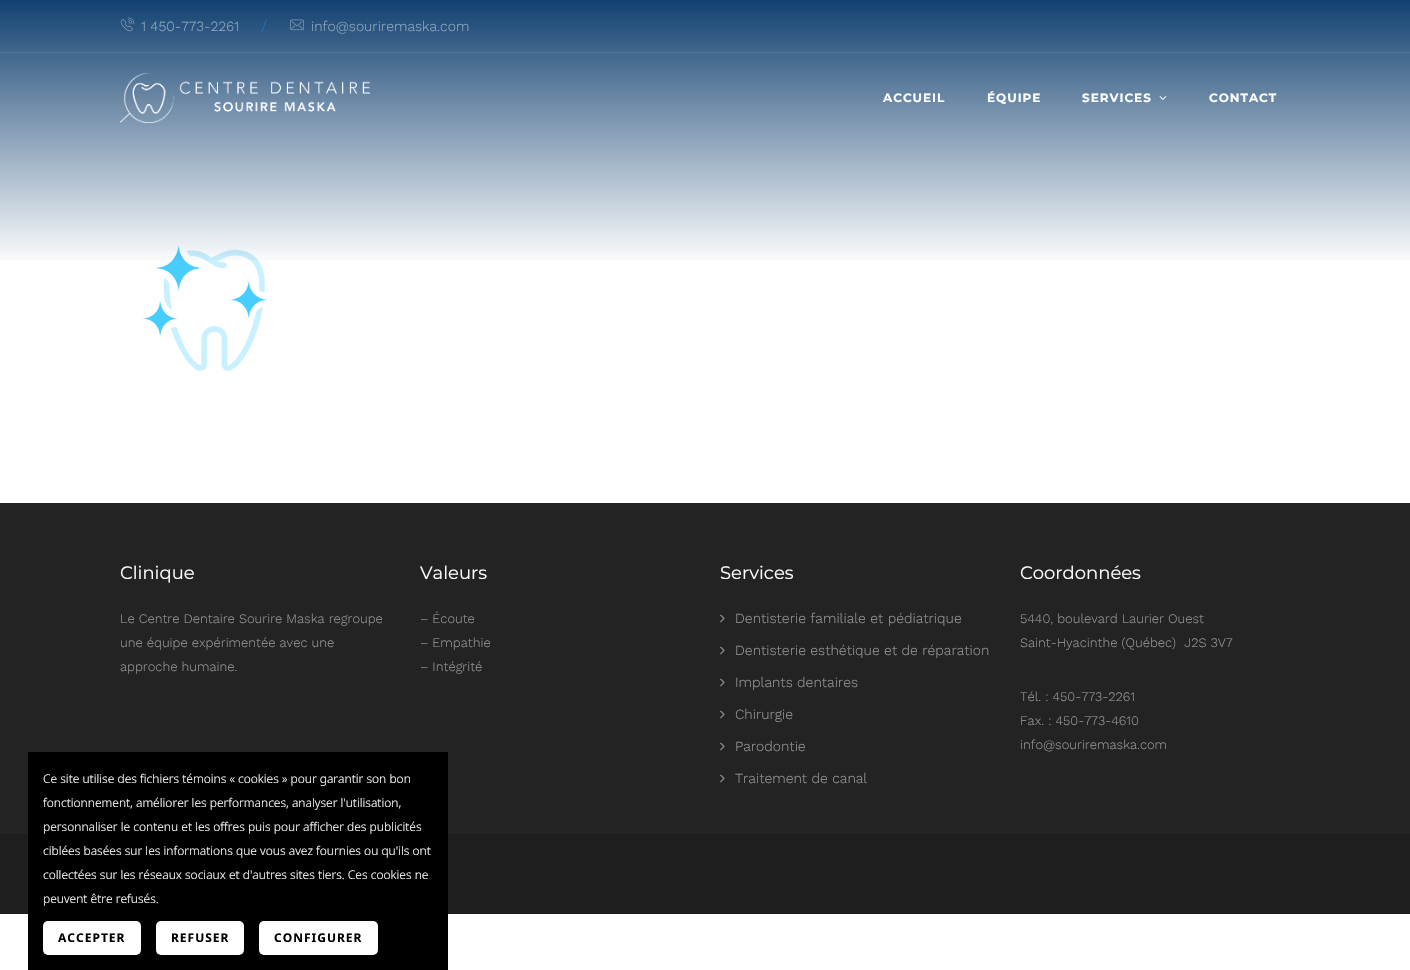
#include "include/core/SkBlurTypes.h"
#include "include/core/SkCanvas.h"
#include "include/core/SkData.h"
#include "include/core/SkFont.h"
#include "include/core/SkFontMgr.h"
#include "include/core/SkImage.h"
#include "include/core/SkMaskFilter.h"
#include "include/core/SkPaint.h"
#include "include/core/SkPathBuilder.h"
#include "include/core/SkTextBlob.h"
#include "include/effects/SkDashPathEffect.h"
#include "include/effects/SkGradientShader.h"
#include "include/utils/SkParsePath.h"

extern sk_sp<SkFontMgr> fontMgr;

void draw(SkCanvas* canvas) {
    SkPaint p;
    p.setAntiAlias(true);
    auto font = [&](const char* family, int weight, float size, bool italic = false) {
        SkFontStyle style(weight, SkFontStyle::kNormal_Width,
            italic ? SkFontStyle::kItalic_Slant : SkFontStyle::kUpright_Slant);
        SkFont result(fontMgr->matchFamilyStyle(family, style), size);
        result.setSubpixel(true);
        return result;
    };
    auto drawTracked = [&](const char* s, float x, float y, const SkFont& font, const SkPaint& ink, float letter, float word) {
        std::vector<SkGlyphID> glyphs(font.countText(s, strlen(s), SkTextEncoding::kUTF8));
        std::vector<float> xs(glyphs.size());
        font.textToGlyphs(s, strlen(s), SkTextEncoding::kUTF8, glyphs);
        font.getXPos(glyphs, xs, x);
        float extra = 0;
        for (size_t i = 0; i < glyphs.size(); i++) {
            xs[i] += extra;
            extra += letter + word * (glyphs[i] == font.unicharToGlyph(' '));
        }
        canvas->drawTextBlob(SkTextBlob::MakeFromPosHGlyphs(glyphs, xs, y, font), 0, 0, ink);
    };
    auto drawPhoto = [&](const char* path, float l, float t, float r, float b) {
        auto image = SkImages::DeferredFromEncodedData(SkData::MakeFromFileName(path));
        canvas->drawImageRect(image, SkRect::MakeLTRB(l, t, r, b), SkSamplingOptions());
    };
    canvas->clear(0xFFFFFFFF);
    drawPhoto("media/5.png", 142, 245, 268, 371);
    {
        const SkColor colors[] = {0xFF003366, 0x00003366};
        const float stops[] = {0, 1};
        const SkPoint ends[] = {{705, -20}, {705, 266}};
        p.setShader(SkGradientShader::MakeLinear(ends, colors, stops, 2, SkTileMode::kClamp));
        p.setAlpha(255);
    }
    canvas->drawRect(SkRect::MakeLTRB(0, 0, 1410, 260), p);
    drawPhoto("media/1.png", 120, 17, 135, 32);
    auto font1 = font("Work Sans", 300, 14);
    p.setShader(nullptr);
    p.setColor(0xFF94A9BF);
    canvas->drawString("1 450-773-2261", 141, 31, font1, p);
    auto font2 = font("Work Sans", 300, 16);
    p.setColor(0xFF1E73BE);
    canvas->drawString("/", 261, 31, font2, p);
    drawPhoto("media/2.png", 290, 19, 304, 31);
    p.setColor(0xFF94A9BF);
    canvas->drawString("info@souriremaska.com", 311, 31, font1, p);
    p.setColor(0xFF547698);
    canvas->drawRect(SkRect::MakeLTRB(0, 52, 1410, 53), p);
    drawPhoto("media/3.png", 120, 73, 370, 123);
    auto font3 = font("Montserrat", 700, 12);
    p.setColor(0xFFFFFFFF);
    {
        const struct { const char* s; float x, y; } items[] = {
            {"ACCUEIL", 883, 102},
            {"ÉQUIPE", 987, 102},
            {"SERVICES", 1082, 102},
        };
        for (auto [s, x, y] : items) {
            drawTracked(s, x, y, font3, p, 1, 0);
        }
    }
    drawPhoto("media/4.png", 1159, 96, 1167, 100);
    drawTracked("CONTACT", 1209, 102, font3, p, 1, 0);
    p.setColor(0xFF232323);
    canvas->drawRect(SkRect::MakeLTRB(0, 503, 1410, 834), p);
    auto font4 = font("Montserrat", 400, 18);
    p.setColor(0xFFFFFFFF);
    canvas->drawString("Clinique", 120, 579, font4, p);
    auto font5 = font("Work Sans", 300, 13);
    p.setColor(0xFF999999);
    {
        const struct { const char* s; float x, y; } items[] = {
            {"Le Centre Dentaire Sourire Maska regroupe", 120, 623},
            {"une équipe expérimentée avec une", 120, 647},
            {"approche humaine.", 120, 671},
        };
        for (auto [s, x, y] : items) {
            canvas->drawString(s, x, y, font5, p);
        }
    }
    p.setColor(0xFFFFFFFF);
    canvas->drawString("Valeurs", 420, 579, font4, p);
    p.setColor(0xFF999999);
    {
        const struct { const char* s; float x, y; } items[] = {
            {"– Écoute", 420, 623},
            {"– Empathie", 420, 647},
            {"– Intégrité", 420, 671},
        };
        for (auto [s, x, y] : items) {
            canvas->drawString(s, x, y, font5, p);
        }
    }
    p.setColor(0xFFFFFFFF);
    canvas->drawString("Services", 720, 579, font4, p);
    drawPhoto("media/6.png", 720, 614, 725, 623);
    p.setColor(0xFF999999);
    canvas->drawString("Dentisterie familiale et pédiatrique", 735, 623, font1, p);
    drawPhoto("media/6.png", 720, 646, 725, 655);
    canvas->drawString("Dentisterie esthétique et de réparation", 735, 655, font1, p);
    drawPhoto("media/6.png", 720, 678, 725, 687);
    canvas->drawString("Implants dentaires", 735, 687, font1, p);
    drawPhoto("media/6.png", 720, 710, 725, 719);
    canvas->drawString("Chirurgie", 735, 719, font1, p);
    drawPhoto("media/6.png", 720, 742, 725, 751);
    canvas->drawString("Parodontie", 735, 751, font1, p);
    drawPhoto("media/6.png", 720, 774, 725, 783);
    canvas->drawString("Traitement de canal", 735, 783, font1, p);
    p.setColor(0xFFFFFFFF);
    canvas->drawString("Coordonnées", 1020, 579, font4, p);
    p.setColor(0xFF999999);
    {
        const struct { const char* s; float x, y; } items[] = {
            {"5440, boulevard Laurier Ouest", 1020, 623},
            {"Saint-Hyacinthe (Québec)  J2S 3V7", 1020, 647},
            {"Tél. : 450-773-2261", 1020, 701},
            {"Fax. : 450-773-4610", 1020, 725},
            {"info@souriremaska.com", 1020, 749},
        };
        for (auto [s, x, y] : items) {
            canvas->drawString(s, x, y, font5, p);
        }
    }
    p.setColor(0xFF1E1E1E);
    canvas->drawRect(SkRect::MakeLTRB(0, 834, 1410, 914), p);
    p.setColor(0xFF000000);
    canvas->drawRect(SkRect::MakeLTRB(28, 752, 448, 970), p);
    auto font6 = font("Noto Sans", 300, 12);
    p.setColor(0xFFFFFFFF);
    {
        const struct { const char* s; float x, y; } items[] = {
            {"Ce site utilise des fichiers témoins « cookies » pour garantir son bon", 43, 783},
            {"fonctionnement, améliorer les performances, analyser l'utilisation,", 43, 807},
            {"personnaliser le contenu et les offres puis pour afficher des publicités", 43, 831},
            {"ciblées basées sur les informations que vous avez fournies ou qu'ils ont", 43, 855},
            {"collectées sur les réseaux sociaux et d'autres sites tiers. Ces cookies ne", 43, 879},
            {"peuvent être refusés.", 43, 903},
        };
        for (auto [s, x, y] : items) {
            canvas->drawString(s, x, y, font6, p);
        }
    }
    canvas->drawRoundRect(SkRect::MakeLTRB(43, 921, 141, 955), 5, 5, p);
    auto font7 = font("Noto Sans", 700, 12);
    p.setColor(0xFF000000);
    drawTracked("ACCEPTER", 58, 942, font7, p, 1, 0);
    p.setColor(0xFFFFFFFF);
    canvas->drawRoundRect(SkRect::MakeLTRB(156, 921, 244, 955), 5, 5, p);
    p.setColor(0xFF000000);
    drawTracked("REFUSER", 171, 942, font7, p, 1, 0);
    p.setColor(0xFFFFFFFF);
    canvas->drawRoundRect(SkRect::MakeLTRB(259, 921, 378, 955), 5, 5, p);
    p.setColor(0xFF000000);
    drawTracked("CONFIGURER", 274, 942, font7, p, 1, 0);
}
